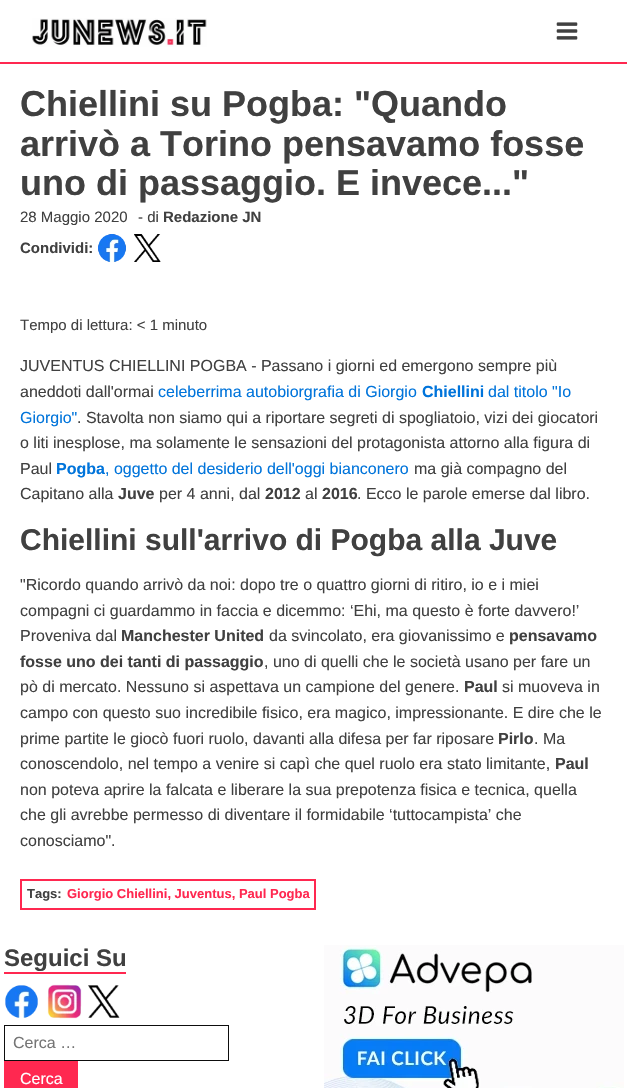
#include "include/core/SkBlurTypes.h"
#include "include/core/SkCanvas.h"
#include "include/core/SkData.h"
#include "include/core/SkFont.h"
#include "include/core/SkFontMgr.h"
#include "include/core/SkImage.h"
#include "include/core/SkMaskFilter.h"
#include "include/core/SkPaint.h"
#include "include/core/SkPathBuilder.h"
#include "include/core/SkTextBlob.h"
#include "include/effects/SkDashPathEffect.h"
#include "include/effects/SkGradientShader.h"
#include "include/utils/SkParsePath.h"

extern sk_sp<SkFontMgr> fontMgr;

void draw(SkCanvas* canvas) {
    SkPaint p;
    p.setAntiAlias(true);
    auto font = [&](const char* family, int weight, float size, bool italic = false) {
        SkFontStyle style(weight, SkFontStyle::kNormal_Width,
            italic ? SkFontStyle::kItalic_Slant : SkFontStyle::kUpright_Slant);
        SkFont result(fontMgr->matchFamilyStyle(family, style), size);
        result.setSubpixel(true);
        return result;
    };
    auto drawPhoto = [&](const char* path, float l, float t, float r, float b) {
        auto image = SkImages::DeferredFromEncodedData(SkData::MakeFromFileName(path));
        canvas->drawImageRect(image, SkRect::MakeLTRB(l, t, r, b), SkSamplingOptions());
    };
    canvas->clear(0xFFFFFFFF);
    p.setColor(0xFFFF2850);
    canvas->drawRect(SkRect::MakeLTRB(0, 62, 627, 64), p);
    drawPhoto("media/1.png", 32, 18, 207, 47);
    drawPhoto("media/2.png", 556, 22, 578, 40);
    auto font1 = font("Liberation Sans", 700, 36);
    p.setColor(0xFF404040);
    {
        const struct { const char* s; float x, y; } items[] = {
            {"Chiellini su Pogba: \"Quando", 20, 116},
            {"arrivò a Torino pensavamo fosse", 20, 156},
            {"uno di passaggio. E invece...\"", 20, 195},
        };
        for (auto [s, x, y] : items) {
            canvas->drawString(s, x, y, font1, p);
        }
    }
    auto font2 = font("Liberation Sans", 400, 15);
    canvas->drawString("28 Maggio 2020", 20, 222, font2, p);
    canvas->drawString("- di", 138, 222, font2, p);
    auto font3 = font("Liberation Sans", 700, 15);
    canvas->drawString("Redazione JN", 163, 222, font3, p);
    canvas->drawString("Condividi:", 20, 253, font3, p);
    drawPhoto("media/3.png", 98, 234, 126, 262);
    drawPhoto("media/4.png", 134, 234, 161, 262);
    canvas->drawString("Tempo di lettura: < 1 minuto", 20, 330, font2, p);
    auto font4 = font("Liberation Sans", 400, 16);
    canvas->drawString("JUVENTUS CHIELLINI POGBA - Passano i giorni ed emergono sempre più", 20, 371, font4, p);
    canvas->drawString("aneddoti dall'ormai", 20, 397, font4, p);
    p.setColor(0xFF0074DB);
    canvas->drawString("celeberrima autobiorgrafia di Giorgio", 158, 397, font4, p);
    auto font5 = font("Liberation Sans", 700, 16);
    canvas->drawString("Chiellini", 422, 397, font5, p);
    canvas->drawString("dal titolo \"Io", 488, 397, font4, p);
    canvas->drawString("Giorgio\"", 20, 423, font4, p);
    p.setColor(0xFF404040);
    {
        const struct { const char* s; float x, y; } items[] = {
            {". Stavolta non siamo qui a riportare segreti di spogliatoio, vizi dei giocatori", 77, 423},
            {"o liti inesplose, ma solamente le sensazioni del protagonista attorno alla figura di", 20, 448},
            {"Paul", 20, 474},
        };
        for (auto [s, x, y] : items) {
            canvas->drawString(s, x, y, font4, p);
        }
    }
    p.setColor(0xFF0074DB);
    canvas->drawString("Pogba", 56, 474, font5, p);
    canvas->drawString(", oggetto del desiderio dell'oggi bianconero", 105, 474, font4, p);
    p.setColor(0xFF404040);
    canvas->drawString("ma già compagno del", 414, 474, font4, p);
    canvas->drawString("Capitano alla", 20, 499, font4, p);
    canvas->drawString("Juve", 118, 499, font5, p);
    canvas->drawString("per 4 anni, dal", 159, 499, font4, p);
    canvas->drawString("2012", 265, 499, font5, p);
    canvas->drawString("al", 305, 499, font4, p);
    canvas->drawString("2016", 322, 499, font5, p);
    canvas->drawString(". Ecco le parole emerse dal libro.", 357, 499, font4, p);
    auto font6 = font("Liberation Sans", 700, 30);
    canvas->drawString("Chiellini sull'arrivo di Pogba alla Juve", 20, 550, font6, p);
    {
        const struct { const char* s; float x, y; } items[] = {
            {"\"Ricordo quando arrivò da noi: dopo tre o quattro giorni di ritiro, io e i miei", 20, 590},
            {"compagni ci guardammo in faccia e dicemmo: ‘Ehi, ma questo è forte davvero!’", 20, 616},
            {"Proveniva dal", 20, 641},
        };
        for (auto [s, x, y] : items) {
            canvas->drawString(s, x, y, font4, p);
        }
    }
    canvas->drawString("Manchester United", 121, 641, font5, p);
    canvas->drawString("da svincolato, era giovanissimo e", 269, 641, font4, p);
    canvas->drawString("pensavamo", 509, 641, font5, p);
    canvas->drawString("fosse uno dei tanti di passaggio", 20, 667, font5, p);
    canvas->drawString(", uno di quelli che le società usano per fare un", 264, 667, font4, p);
    canvas->drawString("pò di mercato. Nessuno si aspettava un campione del genere.", 20, 692, font4, p);
    canvas->drawString("Paul", 464, 692, font5, p);
    {
        const struct { const char* s; float x, y; } items[] = {
            {"si muoveva in", 502, 692},
            {"campo con questo suo incredibile fisico, era magico, impressionante. E dire che le", 20, 718},
            {"prime partite le giocò fuori ruolo, davanti alla difesa per far riposare", 20, 744},
        };
        for (auto [s, x, y] : items) {
            canvas->drawString(s, x, y, font4, p);
        }
    }
    canvas->drawString("Pirlo", 498, 744, font5, p);
    canvas->drawString(". Ma", 534, 744, font4, p);
    canvas->drawString("conoscendolo, nel tempo a venire si capì che quel ruolo era stato limitante,", 20, 769, font4, p);
    canvas->drawString("Paul", 555, 769, font5, p);
    {
        const struct { const char* s; float x, y; } items[] = {
            {"non poteva aprire la falcata e liberare la sua prepotenza fisica e tecnica, quella", 20, 795},
            {"che gli avrebbe permesso di diventare il formidabile ‘tuttocampista’ che", 20, 820},
            {"conosciamo\".", 20, 846},
        };
        for (auto [s, x, y] : items) {
            canvas->drawString(s, x, y, font4, p);
        }
    }
    p.setStyle(SkPaint::kStroke_Style);
    p.setStrokeWidth(2);
    p.setColor(0xFFFF2850);
    canvas->drawRect(SkRect::MakeLTRB(21, 880, 315, 909), p);
    auto font7 = font("Liberation Sans", 700, 13);
    p.setStyle(SkPaint::kFill_Style);
    p.setColor(0xFF404040);
    canvas->drawString("Tags:", 27, 898, font7, p);
    p.setColor(0xFFFF2850);
    canvas->drawString("Giorgio Chiellini, Juventus, Paul Pogba", 67, 898, font7, p);
    canvas->drawRect(SkRect::MakeLTRB(4, 972, 126, 974), p);
    auto font8 = font("Liberation Sans", 700, 24);
    p.setColor(0xFF404040);
    canvas->drawString("Seguici Su", 4, 966, font8, p);
    drawPhoto("media/5.png", 5, 985, 38, 1018);
    drawPhoto("media/6.png", 47, 984, 82, 1019);
    drawPhoto("media/7.png", 88, 985, 120, 1018);
    p.setStyle(SkPaint::kStroke_Style);
    p.setStrokeWidth(1);
    p.setColor(0xFF0D0D0D);
    canvas->drawRect(SkRect::MakeLTRB(4.5f, 1025.5f, 228.5f, 1060.5f), p);
    p.setStyle(SkPaint::kFill_Style);
    p.setColor(0xFF757575);
    canvas->drawString("Cerca …", 13, 1048, font4, p);
    p.setColor(0xFFFF2850);
    canvas->drawRect(SkRect::MakeLTRB(4, 1061, 78, 1088), p);
    p.setColor(0xFFFFFFFF);
    canvas->drawString("Cerca", 20, 1084, font4, p);
    drawPhoto("media/8.png", 324, 945, 624, 1088);
}
